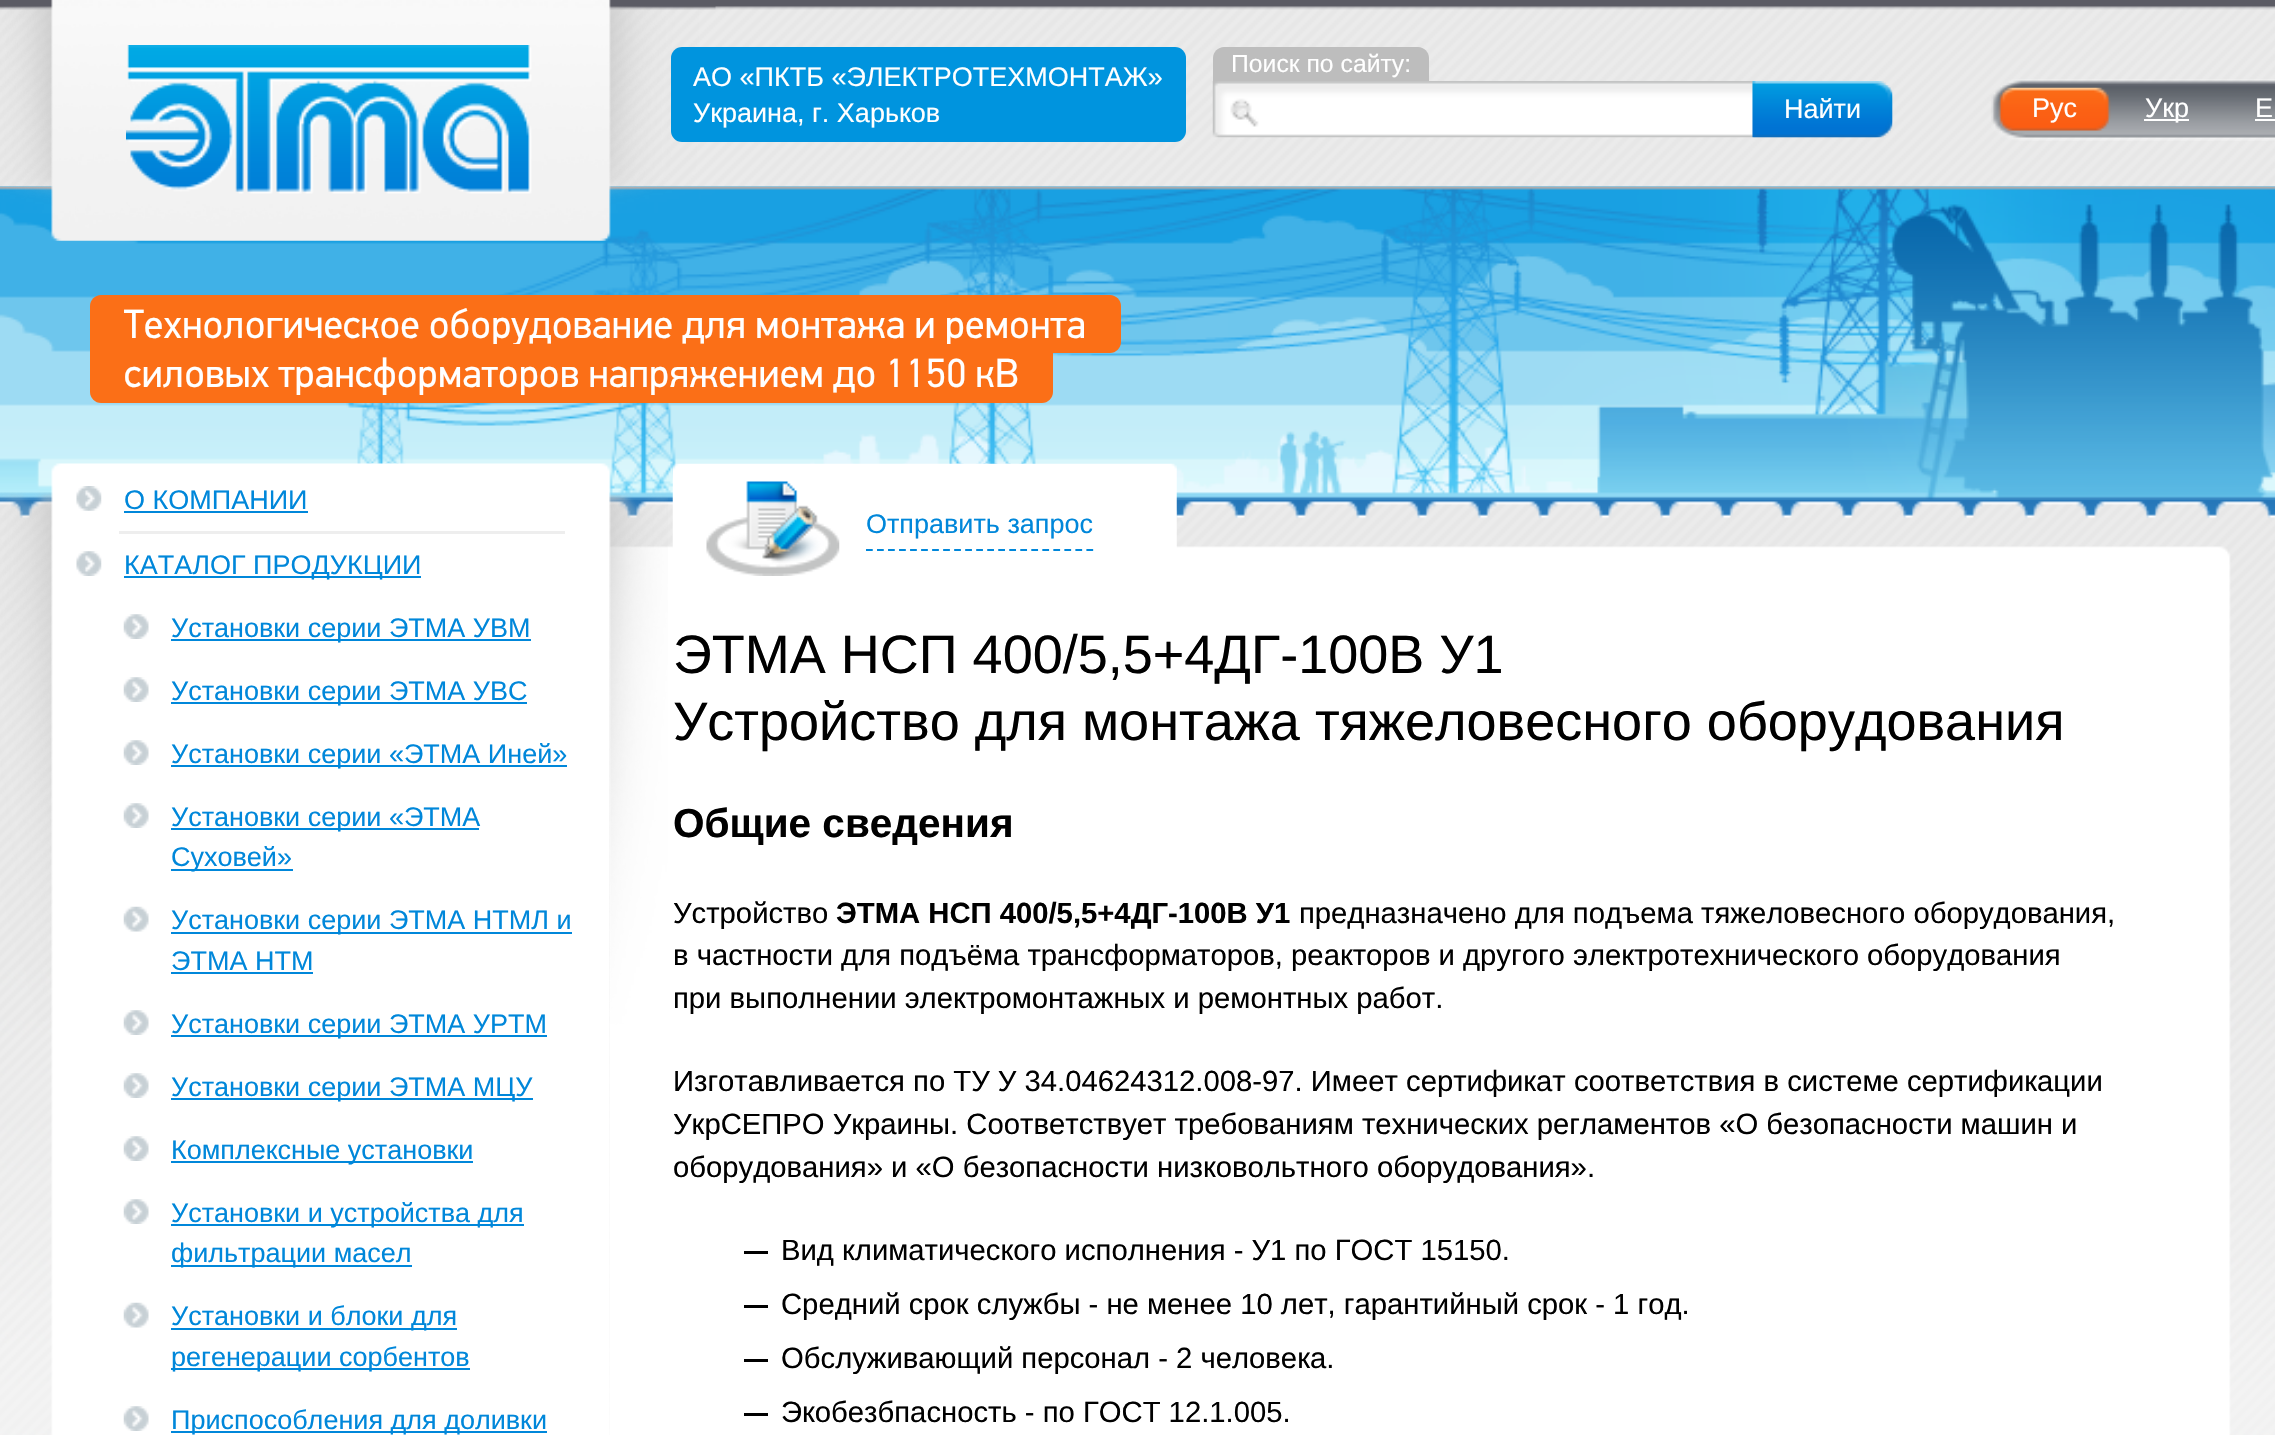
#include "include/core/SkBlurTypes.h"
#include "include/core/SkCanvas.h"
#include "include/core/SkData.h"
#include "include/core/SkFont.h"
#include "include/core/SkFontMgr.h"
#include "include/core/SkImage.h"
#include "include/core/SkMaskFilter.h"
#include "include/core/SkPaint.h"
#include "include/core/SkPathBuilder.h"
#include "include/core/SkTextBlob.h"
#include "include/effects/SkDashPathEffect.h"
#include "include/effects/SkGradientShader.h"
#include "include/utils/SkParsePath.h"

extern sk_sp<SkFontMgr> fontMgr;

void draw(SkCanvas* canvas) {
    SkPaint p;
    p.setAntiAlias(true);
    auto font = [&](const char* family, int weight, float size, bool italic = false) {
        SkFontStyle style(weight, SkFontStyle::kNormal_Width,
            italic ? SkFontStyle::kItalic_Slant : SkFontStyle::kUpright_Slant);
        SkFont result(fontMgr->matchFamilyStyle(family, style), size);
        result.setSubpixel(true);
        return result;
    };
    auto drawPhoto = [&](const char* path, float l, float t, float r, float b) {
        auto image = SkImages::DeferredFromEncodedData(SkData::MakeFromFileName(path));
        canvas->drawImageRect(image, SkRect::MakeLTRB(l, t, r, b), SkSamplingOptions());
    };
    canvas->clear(0xFFFFFFFF);
    drawPhoto("media/1.png", 0, 0, 2275, 1435);
    drawPhoto("media/5.png", 0, 186, 2275, 500);
    drawPhoto("media/2.png", 0, 0, 716, 241);
    drawPhoto("media/4.png", 609, 546, 2231, 1435);
    drawPhoto("media/3.png", 0, 463, 668, 1435);
    drawPhoto("media/6.png", 126, 45, 532, 194);
    p.setColor(0xFF0094DE);
    canvas->drawRoundRect(SkRect::MakeLTRB(671, 47, 1186, 142), 11, 11, p);
    auto font1 = font("Liberation Sans", 400, 27);
    p.setColor(0xFFFFFFFF);
    canvas->drawString("АО «ПКТБ «ЭЛЕКТРОТЕХМОНТАЖ»", 693, 86, font1, p);
    canvas->drawString("Украина, г. Харьков", 693, 122, font1, p);
    drawPhoto("media/7.png", 1212, 81, 1893, 138);
    p.setColor(0xFFBDBDBD);
    canvas->drawPath(SkPathBuilder().moveTo(1224, 47).lineTo(1418, 47).cubicTo(1424, 47, 1429, 52, 1429, 58).lineTo(1429, 81).lineTo(1213, 81).lineTo(1213, 58).cubicTo(1213, 52, 1218, 47, 1224, 47).close().detach(), p);
    auto font2 = font("Liberation Sans", 400, 24.75f);
    p.setColor(0xFFFFFFFF);
    canvas->drawString("Поиск по сайту:", 1231, 72, font2, p);
    drawPhoto("media/8.png", 1752, 81, 1893, 138);
    canvas->drawString("Найти", 1784, 118, font1, p);
    drawPhoto("media/9.png", 1991, 79, 2275, 141);
    drawPhoto("media/10.png", 1998, 87, 2111, 131);
    canvas->drawString("Рус", 2032, 117, font1, p);
    canvas->drawRect(SkRect::MakeLTRB(2144, 119, 2189, 121), p);
    canvas->drawString("Укр", 2145, 117, font1, p);
    canvas->drawString("E", 2255, 117, font1, p);
    canvas->drawRect(SkRect::MakeLTRB(2255, 119, 2275, 121), p);
    p.setColor(0xFFFB6F17);
    canvas->drawPath(SkPathBuilder().moveTo(101, 295).lineTo(1110, 295).cubicTo(1116, 295, 1121, 300, 1121, 306).lineTo(1121, 342).cubicTo(1121, 348, 1116, 353, 1110, 353).lineTo(90, 353).lineTo(90, 306).cubicTo(90, 300, 95, 295, 101, 295).close().detach(), p);
    auto font3 = font("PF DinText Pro", 400, 40.5f);
    p.setColor(0xFFFFFFFF);
    canvas->drawString("Технологическое оборудование для монтажа и ремонта", 124, 338, font3, p);
    p.setColor(0xFFFB6F17);
    canvas->drawPath(SkPathBuilder().moveTo(90, 344).lineTo(1053, 344).lineTo(1053, 392).cubicTo(1053, 398, 1048, 403, 1042, 403).lineTo(101, 403).cubicTo(95, 403, 90, 398, 90, 392).close().detach(), p);
    p.setColor(0xFFFFFFFF);
    canvas->drawString("силовых трансформаторов напряжением до 1150 кВ", 124, 387, font3, p);
    drawPhoto("media/11.png", 76, 486, 102, 511);
    p.setColor(0xFF0087DA);
    canvas->drawString("О КОМПАНИИ", 124, 509, font1, p);
    canvas->drawRect(SkRect::MakeLTRB(124, 511, 308, 513), p);
    p.setColor(0xFFEEEEEE);
    canvas->drawRect(SkRect::MakeLTRB(119, 531, 565, 534), p);
    drawPhoto("media/12.png", 76, 551, 102, 576);
    p.setColor(0xFF0087DA);
    canvas->drawRect(SkRect::MakeLTRB(124, 576, 421, 578), p);
    canvas->drawString("КАТАЛОГ ПРОДУКЦИИ", 124, 574, font1, p);
    drawPhoto("media/13.png", 123, 614, 149, 639);
    canvas->drawRect(SkRect::MakeLTRB(171, 639, 531, 641), p);
    canvas->drawString("Установки серии ЭТМА УВМ", 171, 637, font1, p);
    drawPhoto("media/13.png", 123, 677, 149, 702);
    canvas->drawRect(SkRect::MakeLTRB(171, 702, 527, 704), p);
    canvas->drawString("Установки серии ЭТМА УВС", 171, 700, font1, p);
    drawPhoto("media/13.png", 123, 740, 149, 765);
    canvas->drawRect(SkRect::MakeLTRB(171, 765, 567, 767), p);
    canvas->drawString("Установки серии «ЭТМА Иней»", 171, 763, font1, p);
    drawPhoto("media/13.png", 123, 803, 149, 828);
    canvas->drawRect(SkRect::MakeLTRB(171, 828, 479, 830), p);
    canvas->drawString("Установки серии «ЭТМА", 171, 826, font1, p);
    canvas->drawRect(SkRect::MakeLTRB(171, 869, 293, 871), p);
    canvas->drawString("Суховей»", 171, 866, font1, p);
    drawPhoto("media/14.png", 123, 906, 149, 932);
    canvas->drawRect(SkRect::MakeLTRB(171, 932, 572, 934), p);
    canvas->drawString("Установки серии ЭТМА НТМЛ и", 171, 929, font1, p);
    canvas->drawString("ЭТМА НТМ", 171, 970, font1, p);
    canvas->drawRect(SkRect::MakeLTRB(171, 972, 313, 974), p);
    drawPhoto("media/13.png", 123, 1010, 149, 1035);
    canvas->drawRect(SkRect::MakeLTRB(171, 1035, 547, 1037), p);
    canvas->drawString("Установки серии ЭТМА УРТМ", 171, 1033, font1, p);
    drawPhoto("media/13.png", 123, 1073, 149, 1098);
    canvas->drawRect(SkRect::MakeLTRB(171, 1098, 533, 1100), p);
    canvas->drawString("Установки серии ЭТМА МЦУ", 171, 1096, font1, p);
    drawPhoto("media/13.png", 123, 1136, 149, 1161);
    canvas->drawRect(SkRect::MakeLTRB(171, 1161, 473, 1163), p);
    canvas->drawString("Комплексные установки", 171, 1159, font1, p);
    drawPhoto("media/13.png", 123, 1199, 149, 1224);
    canvas->drawRect(SkRect::MakeLTRB(171, 1224, 524, 1226), p);
    canvas->drawString("Установки и устройства для", 171, 1222, font1, p);
    canvas->drawRect(SkRect::MakeLTRB(171, 1265, 412, 1267), p);
    canvas->drawString("фильтрации масел", 171, 1262, font1, p);
    drawPhoto("media/14.png", 123, 1302, 149, 1328);
    canvas->drawRect(SkRect::MakeLTRB(171, 1328, 457, 1330), p);
    canvas->drawString("Установки и блоки для", 171, 1325, font1, p);
    canvas->drawRect(SkRect::MakeLTRB(171, 1368, 470, 1370), p);
    canvas->drawString("регенерации сорбентов", 171, 1366, font1, p);
    drawPhoto("media/13.png", 123, 1406, 149, 1431);
    canvas->drawRect(SkRect::MakeLTRB(171, 1431, 547, 1433), p);
    canvas->drawString("Приспособления для доливки", 171, 1429, font1, p);
    drawPhoto("media/15.png", 672, 463, 1177, 548);
    p.setStyle(SkPaint::kStroke_Style);
    p.setStrokeWidth(2.2f);
    p.setPathEffect(SkDashPathEffect::Make({{6.75f, 4.27f}}, 0));
    canvas->drawPath(SkPathBuilder().moveTo(866, 550).lineTo(1093.5f, 550).detach(), p);
    p.setPathEffect(nullptr);
    drawPhoto("media/16.png", 706, 481, 840, 576);
    p.setStyle(SkPaint::kFill_Style);
    canvas->drawString("Отправить запрос", 866, 533, font1, p);
    auto font4 = font("Liberation Sans", 400, 54);
    p.setColor(0xFF000000);
    canvas->drawString("ЭТМА НСП 400/5,5+4ДГ-100В У1", 673, 673, font4, p);
    canvas->drawString("Устройство для монтажа тяжеловесного оборудования", 673, 740, font4, p);
    auto font5 = font("Liberation Sans", 700, 40.5f);
    canvas->drawString("Общие сведения", 673, 837, font5, p);
    auto font6 = font("Liberation Sans", 400, 29.25f);
    canvas->drawString("Устройство", 673, 923, font6, p);
    auto font7 = font("Liberation Sans", 700, 29.25f);
    canvas->drawString("ЭТМА НСП 400/5,5+4ДГ-100В У1", 836, 923, font7, p);
    {
        const struct { const char* s; float x, y; } items[] = {
            {"предназначено для подъема тяжеловесного оборудования,", 1299, 923},
            {"в частности для подъёма трансформаторов, реакторов и другого электротехнического оборудования", 673, 965},
            {"при выполнении электромонтажных и ремонтных работ.", 673, 1008},
            {"Изготавливается по ТУ У 34.04624312.008-97. Имеет сертификат соответствия в системе сертификации", 673, 1091},
            {"УкрСЕПРО Украины. Соответствует требованиям технических регламентов «О безопасности машин и", 673, 1134},
            {"оборудования» и «О безопасности низковольтного оборудования».", 673, 1177},
        };
        for (auto [s, x, y] : items) {
            canvas->drawString(s, x, y, font6, p);
        }
    }
    canvas->drawRect(SkRect::MakeLTRB(744, 1251, 768, 1254), p);
    canvas->drawString("Вид климатического исполнения - У1 по ГОСТ 15150.", 781, 1260, font6, p);
    canvas->drawRect(SkRect::MakeLTRB(744, 1305, 768, 1308), p);
    canvas->drawString("Средний срок службы - не менее 10 лет, гарантийный срок - 1 год.", 781, 1314, font6, p);
    canvas->drawRect(SkRect::MakeLTRB(744, 1359, 768, 1362), p);
    canvas->drawString("Обслуживающий персонал - 2 человека.", 781, 1368, font6, p);
    canvas->drawRect(SkRect::MakeLTRB(744, 1413, 768, 1416), p);
    canvas->drawString("Экобезбпасность - по ГОСТ 12.1.005.", 781, 1422, font6, p);
}
